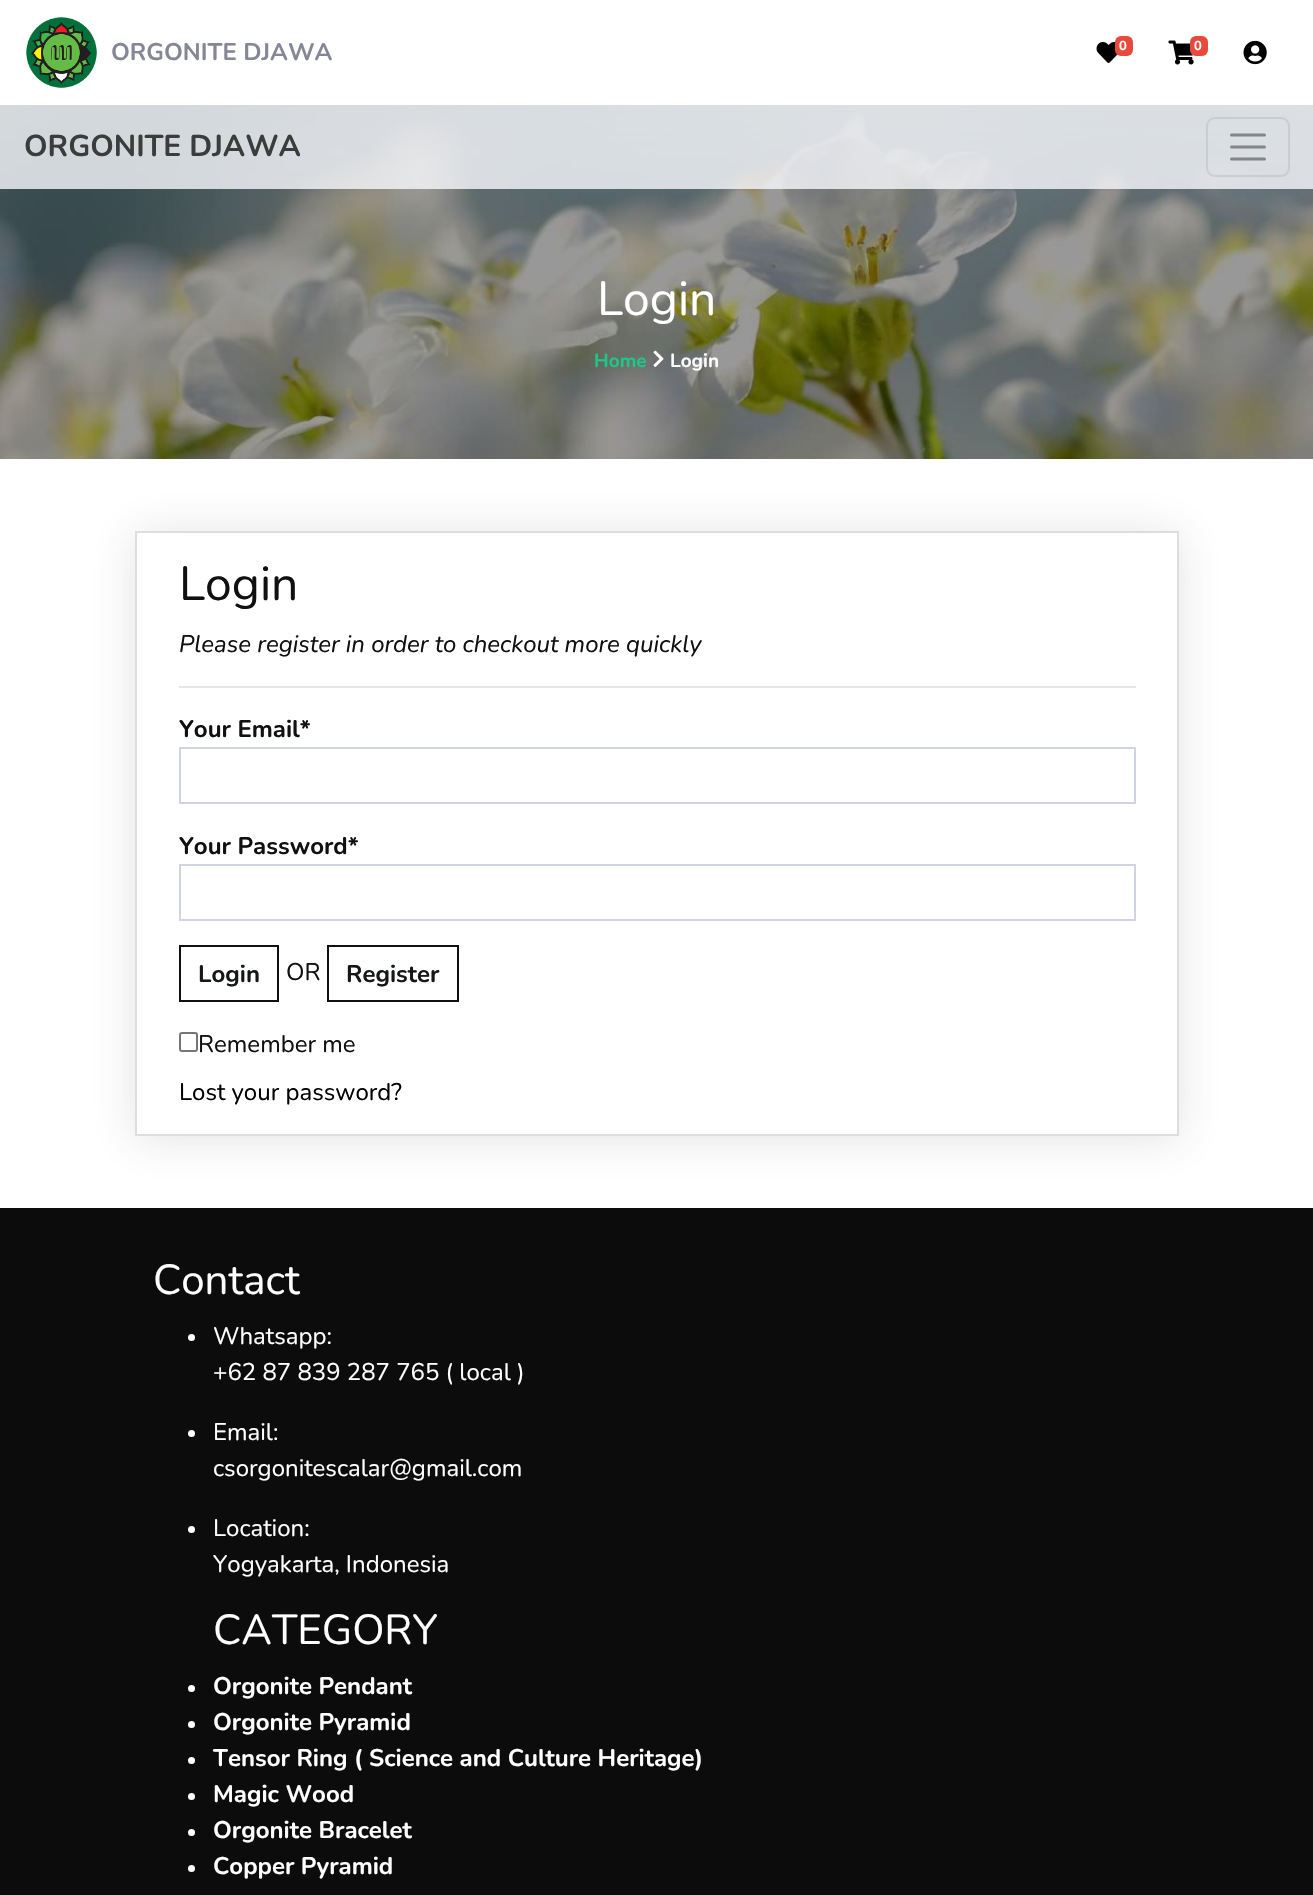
#include "include/core/SkBlurTypes.h"
#include "include/core/SkCanvas.h"
#include "include/core/SkData.h"
#include "include/core/SkFont.h"
#include "include/core/SkFontMgr.h"
#include "include/core/SkImage.h"
#include "include/core/SkMaskFilter.h"
#include "include/core/SkPaint.h"
#include "include/core/SkPathBuilder.h"
#include "include/core/SkTextBlob.h"
#include "include/effects/SkDashPathEffect.h"
#include "include/effects/SkGradientShader.h"
#include "include/utils/SkParsePath.h"

extern sk_sp<SkFontMgr> fontMgr;

void draw(SkCanvas* canvas) {
    SkPaint p;
    p.setAntiAlias(true);
    auto font = [&](const char* family, int weight, float size, bool italic = false) {
        SkFontStyle style(weight, SkFontStyle::kNormal_Width,
            italic ? SkFontStyle::kItalic_Slant : SkFontStyle::kUpright_Slant);
        SkFont result(fontMgr->matchFamilyStyle(family, style), size);
        result.setSubpixel(true);
        return result;
    };
    auto drawPhoto = [&](const char* path, float l, float t, float r, float b) {
        auto image = SkImages::DeferredFromEncodedData(SkData::MakeFromFileName(path));
        canvas->drawImageRect(image, SkRect::MakeLTRB(l, t, r, b), SkSamplingOptions());
    };
    canvas->clear(0xFFFFFFFF);
    p.setColor(0xFF000000);
    canvas->drawRect(SkRect::MakeLTRB(0, 105, 1313, 459), p);
    drawPhoto("media/5.png", 0, 105, 1313, 459);
    p.setColor(0x263A3B45);
    p.setMaskFilter(SkMaskFilter::MakeBlur(kNormal_SkBlurStyle, 21));
    canvas->drawRect(SkRect::MakeLTRB(0, 3, 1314, 108), p);
    p.setMaskFilter(nullptr);
    p.setColor(0xFFFFFFFF);
    canvas->drawRect(SkRect::MakeLTRB(0, 0, 1313, 105), p);
    drawPhoto("media/1.png", 26, 17, 97, 88);
    auto font1 = font("Nunito", 700, 24);
    p.setColor(0xFF858796);
    canvas->drawString("ORGONITE DJAWA", 111, 60, font1, p);
    drawPhoto("media/2.png", 1096, 42, 1118, 63);
    p.setColor(0xFFE74A3B);
    canvas->drawRoundRect(SkRect::MakeLTRB(1115, 36, 1133, 56), 6, 6, p);
    auto font2 = font("Nunito", 700, 13);
    p.setColor(0xFFFFFFFF);
    canvas->drawString("0", 1119, 50, font2, p);
    drawPhoto("media/3.png", 1168, 40, 1194, 65);
    p.setColor(0xFFE74A3B);
    canvas->drawRoundRect(SkRect::MakeLTRB(1190, 36, 1208, 56), 6, 6, p);
    p.setColor(0xFFFFFFFF);
    canvas->drawString("0", 1194, 50, font2, p);
    drawPhoto("media/4.png", 1243, 40, 1267, 65);
    p.setColor(0xCCF8F9FC);
    canvas->drawRect(SkRect::MakeLTRB(0, 105, 1313, 189), p);
    auto font3 = font("Nunito", 700, 30);
    p.setColor(0xFF3B3D3D);
    canvas->drawString("ORGONITE DJAWA", 24, 156, font3, p);
    p.setStyle(SkPaint::kStroke_Style);
    p.setStrokeWidth(2);
    p.setColor(0x14000000);
    canvas->drawRoundRect(SkRect::MakeLTRB(1207, 118, 1289, 176), 8, 8, p);
    p.setStrokeWidth(3);
    p.setStrokeCap(SkPaint::kRound_Cap);
    p.setColor(0xFF838588);
    canvas->drawPath(SkPathBuilder().moveTo(1231.5f, 135).lineTo(1264.5f, 135).moveTo(1231.5f, 147).lineTo(1264.5f, 147).moveTo(1231.5f, 159).lineTo(1264.5f, 159).detach(), p);
    auto font4 = font("Nunito", 400, 48);
    p.setStyle(SkPaint::kFill_Style);
    p.setColor(0xFFFFFFFF);
    canvas->drawString("Login", 597, 315, font4, p);
    auto font5 = font("Nunito", 700, 19);
    p.setColor(0xFF1CC88A);
    canvas->drawString("Home", 594, 367, font5, p);
    drawPhoto("media/6.png", 653, 350, 664, 367);
    p.setColor(0xFFFFFFFF);
    canvas->drawString("Login", 670, 367, font5, p);
    p.setColor(0x263A3B45);
    p.setMaskFilter(SkMaskFilter::MakeBlur(kNormal_SkBlurStyle, 21));
    canvas->drawRect(SkRect::MakeLTRB(135, 534, 1179, 1139), p);
    p.setMaskFilter(nullptr);
    p.setColor(0xFFFFFFFF);
    canvas->drawRect(SkRect::MakeLTRB(136, 532, 1178, 1135), p);
    p.setStyle(SkPaint::kStroke_Style);
    p.setStrokeWidth(2);
    p.setStrokeCap(SkPaint::kButt_Cap);
    p.setColor(0xFFDDDDDD);
    canvas->drawRect(SkRect::MakeLTRB(136, 532, 1178, 1135), p);
    p.setStyle(SkPaint::kFill_Style);
    p.setColor(0xFF101010);
    canvas->drawString("Login", 179, 600, font4, p);
    auto font6 = font("Nunito", 400, 24, true);
    canvas->drawString("Please register in order to checkout more quickly", 179, 652, font6, p);
    p.setColor(0xFFE6E6E6);
    canvas->drawRect(SkRect::MakeLTRB(179, 686, 1136, 688), p);
    p.setColor(0xFF101010);
    canvas->drawString("Your Email*", 179, 737, font1, p);
    p.setStyle(SkPaint::kStroke_Style);
    p.setColor(0xFFD1D3E2);
    canvas->drawRect(SkRect::MakeLTRB(180, 748, 1135, 803), p);
    p.setStyle(SkPaint::kFill_Style);
    p.setColor(0xFF101010);
    canvas->drawString("Your Password*", 179, 854, font1, p);
    p.setStyle(SkPaint::kStroke_Style);
    p.setColor(0xFFD1D3E2);
    canvas->drawRect(SkRect::MakeLTRB(180, 865, 1135, 920), p);
    p.setColor(0xFF0F1211);
    canvas->drawRect(SkRect::MakeLTRB(180, 946, 278, 1001), p);
    p.setStyle(SkPaint::kFill_Style);
    p.setColor(0xFF161818);
    canvas->drawString("Login", 198, 982, font1, p);
    auto font7 = font("Nunito", 400, 24);
    p.setColor(0xFF101010);
    canvas->drawString("OR", 286, 980, font7, p);
    p.setStyle(SkPaint::kStroke_Style);
    p.setColor(0xFF0F1211);
    canvas->drawRect(SkRect::MakeLTRB(328, 946, 458, 1001), p);
    p.setStyle(SkPaint::kFill_Style);
    p.setColor(0xFF161818);
    canvas->drawString("Register", 346, 982, font1, p);
    p.setStyle(SkPaint::kStroke_Style);
    p.setColor(0xFF767676);
    canvas->drawRoundRect(SkRect::MakeLTRB(180, 1033, 197, 1051), 2, 2, p);
    p.setStyle(SkPaint::kFill_Style);
    p.setColor(0xFF101010);
    canvas->drawString("Remember me", 198, 1052, font7, p);
    p.setColor(0xFF000000);
    canvas->drawString("Lost your password?", 179, 1100, font7, p);
    p.setColor(0xFF0C0C0C);
    canvas->drawRect(SkRect::MakeLTRB(0, 1208, 1313, 1895), p);
    auto font8 = font("Nunito", 400, 42);
    p.setColor(0xFFFFFFFF);
    canvas->drawString("Contact", 153, 1294, font8, p);
    canvas->drawCircle(191.5f, 1337.5f, 3.5f, p);
    canvas->drawString("Whatsapp:", 213, 1344, font7, p);
    canvas->drawString("+62 87 839 287 765 ( local )", 213, 1380, font7, p);
    canvas->drawCircle(191.5f, 1433.5f, 3.5f, p);
    canvas->drawString("Email:", 213, 1440, font7, p);
    canvas->drawString("csorgonitescalar@gmail.com", 213, 1476, font7, p);
    canvas->drawCircle(191.5f, 1529.5f, 3.5f, p);
    canvas->drawString("Location:", 213, 1536, font7, p);
    canvas->drawString("Yogyakarta, Indonesia", 213, 1572, font7, p);
    canvas->drawString("CATEGORY", 213, 1644, font8, p);
    canvas->drawCircle(191.5f, 1688.5f, 3.5f, p);
    canvas->drawString("Orgonite Pendant", 213, 1694, font1, p);
    canvas->drawCircle(191.5f, 1724.5f, 3.5f, p);
    canvas->drawString("Orgonite Pyramid", 213, 1730, font1, p);
    canvas->drawCircle(191.5f, 1760.5f, 3.5f, p);
    canvas->drawString("Tensor Ring ( Science and Culture Heritage)", 213, 1766, font1, p);
    canvas->drawCircle(191.5f, 1796.5f, 3.5f, p);
    canvas->drawString("Magic Wood", 213, 1802, font1, p);
    canvas->drawCircle(191.5f, 1832.5f, 3.5f, p);
    canvas->drawString("Orgonite Bracelet", 213, 1838, font1, p);
    canvas->drawCircle(191.5f, 1868.5f, 3.5f, p);
    canvas->drawString("Copper Pyramid", 213, 1874, font1, p);
}
